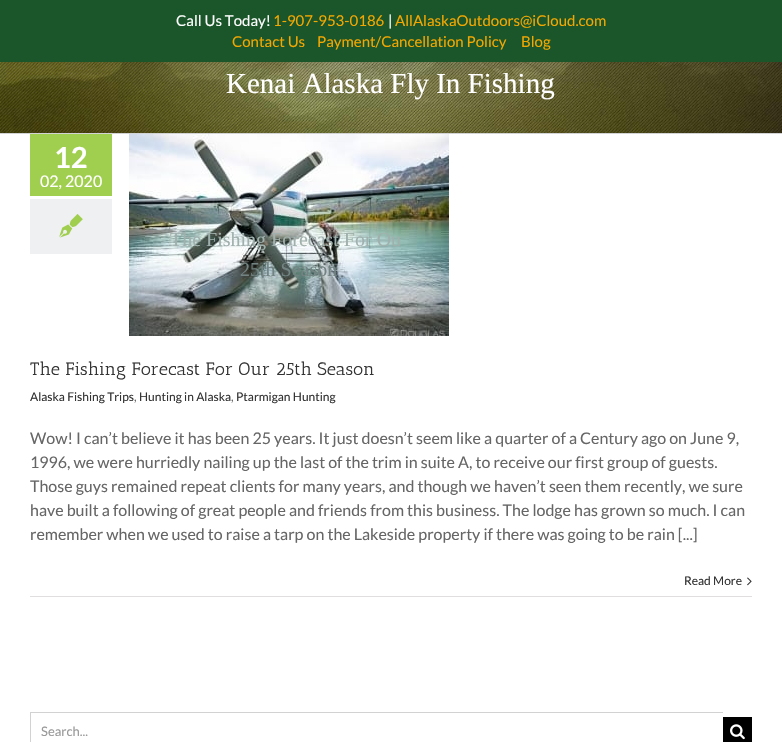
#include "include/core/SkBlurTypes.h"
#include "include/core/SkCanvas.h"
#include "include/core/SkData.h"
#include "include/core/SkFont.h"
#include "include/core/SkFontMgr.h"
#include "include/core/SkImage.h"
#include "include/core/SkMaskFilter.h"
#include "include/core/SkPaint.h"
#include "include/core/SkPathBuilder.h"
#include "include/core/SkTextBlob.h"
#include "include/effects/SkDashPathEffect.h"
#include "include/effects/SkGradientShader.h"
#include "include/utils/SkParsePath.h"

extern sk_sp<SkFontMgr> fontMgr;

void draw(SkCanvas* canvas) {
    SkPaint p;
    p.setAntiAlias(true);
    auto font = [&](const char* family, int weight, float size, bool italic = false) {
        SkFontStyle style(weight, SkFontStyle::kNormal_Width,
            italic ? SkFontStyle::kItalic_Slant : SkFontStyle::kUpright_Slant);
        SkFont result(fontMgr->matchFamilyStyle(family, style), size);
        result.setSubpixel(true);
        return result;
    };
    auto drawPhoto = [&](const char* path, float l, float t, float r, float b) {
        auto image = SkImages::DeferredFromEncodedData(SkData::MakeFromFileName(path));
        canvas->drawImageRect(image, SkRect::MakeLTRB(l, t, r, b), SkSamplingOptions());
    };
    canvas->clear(0xFFFFFFFF);
    drawPhoto("media/1.png", 0, 62, 782, 133);
    p.setColor(0x0D000000);
    p.setMaskFilter(SkMaskFilter::MakeBlur(kNormal_SkBlurStyle, 2));
    canvas->drawRect(SkRect::MakeLTRB(0, 3, 782, 65), p);
    p.setMaskFilter(nullptr);
    p.setColor(0x24000000);
    p.setMaskFilter(SkMaskFilter::MakeBlur(kNormal_SkBlurStyle, 25));
    canvas->drawRect(SkRect::MakeLTRB(2, -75, 780, 40), p);
    p.setMaskFilter(nullptr);
    p.setColor(0xFF1B562A);
    canvas->drawRect(SkRect::MakeLTRB(0, 0, 782, 62), p);
    auto font1 = font("Lato", 400, 15);
    p.setColor(0xFFFFFFFF);
    canvas->drawString("Call Us Today!", 176, 26, font1, p);
    p.setColor(0xFFF4A700);
    canvas->drawString("1-907-953-0186", 273, 26, font1, p);
    p.setColor(0xFFFFFFFF);
    canvas->drawString("|", 388, 26, font1, p);
    p.setColor(0xFFF4A700);
    {
        const struct { const char* s; float x, y; } items[] = {
            {"AllAlaskaOutdoors@iCloud.com", 395, 26},
            {"Contact Us", 232, 47},
            {"Payment/Cancellation Policy", 317, 47},
            {"Blog", 521, 47},
        };
        for (auto [s, x, y] : items) {
            canvas->drawString(s, x, y, font1, p);
        }
    }
    p.setColor(0xFFD2D3D4);
    canvas->drawRect(SkRect::MakeLTRB(0, 133, 782, 134), p);
    auto font2 = font("Liberation Serif", 400, 29);
    p.setColor(0xFFFFFFFF);
    canvas->drawString("Kenai Alaska Fly In Fishing", 226, 93, font2, p);
    p.setColor(0xFFA0CE4E);
    canvas->drawRect(SkRect::MakeLTRB(30, 134, 112, 196), p);
    auto font3 = font("Lato", 700, 29);
    p.setColor(0xFFFFFFFF);
    canvas->drawString("12", 54, 168, font3, p);
    auto font4 = font("Lato", 400, 16);
    canvas->drawString("02, 2020", 40, 187, font4, p);
    p.setColor(0xFFEEF0F2);
    canvas->drawRect(SkRect::MakeLTRB(30, 199, 112, 254), p);
    drawPhoto("media/2.png", 59, 214, 83, 238);
    drawPhoto("media/3.png", 129, 134, 449, 336);
    auto font5 = font("Liberation Serif", 400, 20);
    p.setColor(0xFFA0B0AC);
    canvas->drawString("The Fishing Forecast For Ou", 170, 246, font5, p);
    p.setColor(0xFF728382);
    canvas->drawString("25th Season", 240, 276, font5, p);
    auto font6 = font("Antic Slab", 400, 18);
    p.setColor(0xFF333333);
    canvas->drawString("The Fishing Forecast For Our 25th Season", 30, 375, font6, p);
    auto font7 = font("Lato", 400, 12);
    canvas->drawString("Alaska Fishing Trips", 30, 401, font7, p);
    p.setColor(0xFF666666);
    canvas->drawString(",", 134, 401, font7, p);
    p.setColor(0xFF333333);
    canvas->drawString("Hunting in Alaska", 139, 401, font7, p);
    p.setColor(0xFF666666);
    canvas->drawString(",", 231, 401, font7, p);
    p.setColor(0xFF333333);
    canvas->drawString("Ptarmigan Hunting", 236, 401, font7, p);
    p.setColor(0xFF666666);
    {
        const struct { const char* s; float x, y; } items[] = {
            {"Wow! I can’t believe it has been 25 years. It just doesn’t seem like a quarter of a Century ago on June 9,", 30, 444},
            {"1996, we were hurriedly nailing up the last of the trim in suite A, to receive our first group of guests.", 30, 468},
            {"Those guys remained repeat clients for many years, and though we haven’t seen them recently, we sure", 30, 492},
            {"have built a following of great people and friends from this business. The lodge has grown so much. I can", 30, 516},
            {"remember when we used to raise a tarp on the Lakeside property if there was going to be rain [...]", 30, 540},
        };
        for (auto [s, x, y] : items) {
            canvas->drawString(s, x, y, font4, p);
        }
    }
    p.setColor(0xFFE0DEDE);
    canvas->drawRect(SkRect::MakeLTRB(30, 596, 752, 597), p);
    p.setColor(0xFF333333);
    canvas->drawString("Read More", 684, 585, font7, p);
    drawPhoto("media/4.png", 747, 577, 752, 586);
    p.setColor(0xFFD2D2D2);
    canvas->drawRect(SkRect::MakeLTRB(30, 712, 723, 713), p);
    canvas->drawRect(SkRect::MakeLTRB(30, 712, 31, 742), p);
    auto font8 = font("Lato", 400, 13);
    p.setColor(0xFF999999);
    canvas->drawString("Search...", 41, 736, font8, p);
    p.setColor(0xFF000000);
    canvas->drawRect(SkRect::MakeLTRB(723, 717, 752, 742), p);
    drawPhoto("media/5.png", 730, 724, 745, 740);
}
